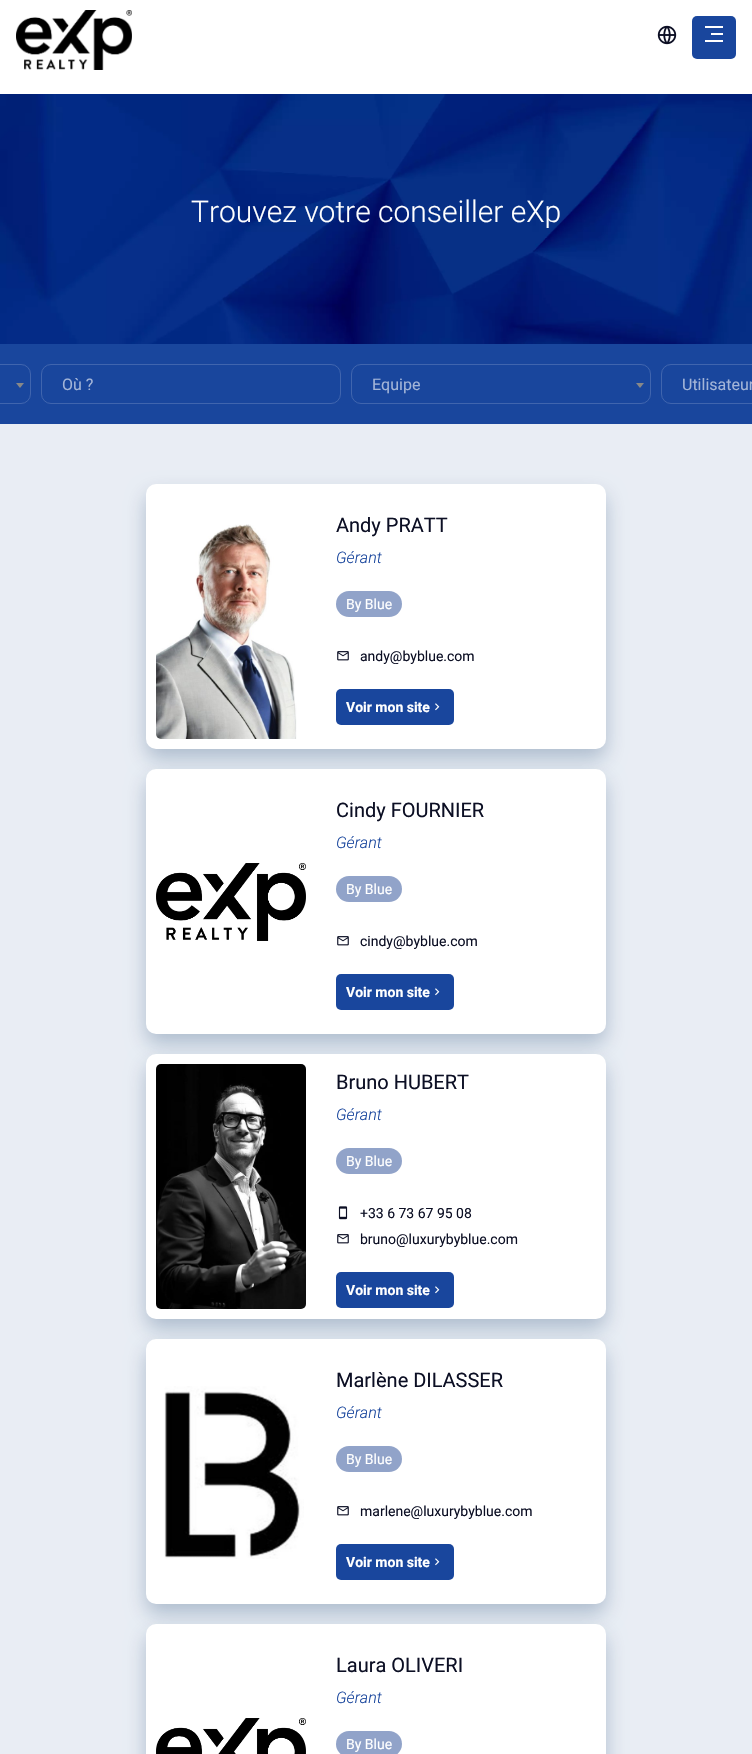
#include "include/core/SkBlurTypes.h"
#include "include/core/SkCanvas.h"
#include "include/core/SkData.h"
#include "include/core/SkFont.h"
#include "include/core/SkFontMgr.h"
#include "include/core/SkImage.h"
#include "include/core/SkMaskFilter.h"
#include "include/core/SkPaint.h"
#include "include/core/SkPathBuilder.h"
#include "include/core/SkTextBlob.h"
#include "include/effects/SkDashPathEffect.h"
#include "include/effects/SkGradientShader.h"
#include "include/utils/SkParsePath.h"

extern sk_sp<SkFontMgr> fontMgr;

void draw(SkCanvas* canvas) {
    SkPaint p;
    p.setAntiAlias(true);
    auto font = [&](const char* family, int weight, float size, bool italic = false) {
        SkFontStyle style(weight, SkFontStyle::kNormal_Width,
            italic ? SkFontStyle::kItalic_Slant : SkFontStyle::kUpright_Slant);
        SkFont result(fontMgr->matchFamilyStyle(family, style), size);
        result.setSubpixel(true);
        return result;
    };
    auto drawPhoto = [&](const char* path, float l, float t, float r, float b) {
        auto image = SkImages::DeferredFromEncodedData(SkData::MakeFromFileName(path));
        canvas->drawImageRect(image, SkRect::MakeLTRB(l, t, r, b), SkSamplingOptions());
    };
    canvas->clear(0xFFE9EDF4);
    p.setColor(0xFFFFFFFF);
    canvas->drawRect(SkRect::MakeLTRB(0, 0, 752, 94), p);
    drawPhoto("media/1.png", 16, 10, 132, 70);
    drawPhoto("media/2.png", 657, 25, 677, 45);
    p.setColor(0xFF19469D);
    canvas->drawRoundRect(SkRect::MakeLTRB(692, 16, 736, 59), 5, 5, p);
    drawPhoto("media/3.png", 705, 26, 723, 42);
    drawPhoto("media/4.png", 0, 94, 752, 344);
    auto font1 = font("Roboto", 300, 30);
    p.setColor(0xFFFFFFFF);
    canvas->drawString("Trouvez votre conseiller eXp", 191, 222, font1, p);
    p.setColor(0xFF19469D);
    canvas->drawRect(SkRect::MakeLTRB(0, 344, 752, 424), p);
    p.setStyle(SkPaint::kStroke_Style);
    p.setStrokeWidth(1);
    p.setColor(0xFF4065AE);
    canvas->drawRoundRect(SkRect::MakeLTRB(-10.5f, 364.5f, 30.5f, 403.5f), 9.5f, 9.5f, p);
    p.setStyle(SkPaint::kFill_Style);
    p.setColor(0xFF888888);
    canvas->drawPath(SkPathBuilder().moveTo(16, 383).lineTo(24, 383).lineTo(20, 388).close().detach(), p);
    p.setStyle(SkPaint::kStroke_Style);
    p.setColor(0xFF4065AE);
    canvas->drawRoundRect(SkRect::MakeLTRB(41.5f, 364.5f, 340.5f, 403.5f), 9.5f, 9.5f, p);
    auto font2 = font("Roboto", 400, 16);
    p.setStyle(SkPaint::kFill_Style);
    p.setColor(0xFFA3B5D8);
    canvas->drawString("Où ?", 62, 390, font2, p);
    p.setStyle(SkPaint::kStroke_Style);
    p.setColor(0xFF4065AE);
    canvas->drawRoundRect(SkRect::MakeLTRB(351.5f, 364.5f, 650.5f, 403.5f), 9.5f, 9.5f, p);
    p.setStyle(SkPaint::kFill_Style);
    p.setColor(0xFFA3B5D8);
    canvas->drawString("Equipe", 372, 390, font2, p);
    p.setColor(0xFF888888);
    canvas->drawPath(SkPathBuilder().moveTo(636, 383).lineTo(644, 383).lineTo(640, 388).close().detach(), p);
    p.setStyle(SkPaint::kStroke_Style);
    p.setColor(0xFF4065AE);
    canvas->drawRoundRect(SkRect::MakeLTRB(661.5f, 364.5f, 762.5f, 403.5f), 9.5f, 9.5f, p);
    p.setStyle(SkPaint::kFill_Style);
    p.setColor(0xFFA3B5D8);
    canvas->drawString("Utilisateur", 682, 390, font2, p);
    p.setColor(0x40002D5B);
    p.setMaskFilter(SkMaskFilter::MakeBlur(kNormal_SkBlurStyle, 10));
    canvas->drawRoundRect(SkRect::MakeLTRB(146, 494, 606, 759), 10, 10, p);
    p.setMaskFilter(nullptr);
    p.setColor(0xFFFFFFFF);
    canvas->drawRoundRect(SkRect::MakeLTRB(146, 484, 606, 749), 10, 10, p);
    drawPhoto("media/5.png", 156, 524, 297, 739);
    auto font3 = font("Roboto", 400, 20);
    p.setColor(0xFF0C0F24);
    canvas->drawString("Andy PRATT", 336, 532, font3, p);
    auto font4 = font("Roboto", 300, 16, true);
    p.setColor(0xFF19469D);
    canvas->drawString("Gérant", 336, 563, font4, p);
    p.setColor(0xFF91A3C9);
    canvas->drawRoundRect(SkRect::MakeLTRB(336, 591, 402, 617), 13, 13, p);
    auto font5 = font("Roboto", 400, 14);
    p.setColor(0xFFFFFFFF);
    canvas->drawString("By Blue", 346, 609, font5, p);
    drawPhoto("media/6.png", 337, 651, 349, 661);
    p.setColor(0xFF0C0F24);
    canvas->drawString("andy@byblue.com", 360, 661, font5, p);
    p.setColor(0xFF19469D);
    canvas->drawRoundRect(SkRect::MakeLTRB(336, 689, 454, 725), 5, 5, p);
    auto font6 = font("Roboto", 700, 14);
    p.setColor(0xFFFFFFFF);
    canvas->drawString("Voir mon site", 346, 712, font6, p);
    drawPhoto("media/7.png", 435, 703, 440, 711);
    p.setColor(0x40002D5B);
    p.setMaskFilter(SkMaskFilter::MakeBlur(kNormal_SkBlurStyle, 10));
    canvas->drawRoundRect(SkRect::MakeLTRB(146, 779, 606, 1044), 10, 10, p);
    p.setMaskFilter(nullptr);
    p.setColor(0xFFFFFFFF);
    canvas->drawRoundRect(SkRect::MakeLTRB(146, 769, 606, 1034), 10, 10, p);
    drawPhoto("media/8.png", 156, 863, 306, 941);
    p.setColor(0xFF0C0F24);
    canvas->drawString("Cindy FOURNIER", 336, 817, font3, p);
    p.setColor(0xFF19469D);
    canvas->drawString("Gérant", 336, 848, font4, p);
    p.setColor(0xFF91A3C9);
    canvas->drawRoundRect(SkRect::MakeLTRB(336, 876, 402, 902), 13, 13, p);
    p.setColor(0xFFFFFFFF);
    canvas->drawString("By Blue", 346, 894, font5, p);
    drawPhoto("media/6.png", 337, 936, 349, 946);
    p.setColor(0xFF0C0F24);
    canvas->drawString("cindy@byblue.com", 360, 946, font5, p);
    p.setColor(0xFF19469D);
    canvas->drawRoundRect(SkRect::MakeLTRB(336, 974, 454, 1010), 5, 5, p);
    p.setColor(0xFFFFFFFF);
    canvas->drawString("Voir mon site", 346, 997, font6, p);
    drawPhoto("media/7.png", 435, 988, 440, 996);
    p.setColor(0x40002D5B);
    p.setMaskFilter(SkMaskFilter::MakeBlur(kNormal_SkBlurStyle, 10));
    canvas->drawRoundRect(SkRect::MakeLTRB(146, 1064, 606, 1329), 10, 10, p);
    p.setMaskFilter(nullptr);
    p.setColor(0xFFFFFFFF);
    canvas->drawRoundRect(SkRect::MakeLTRB(146, 1054, 606, 1319), 10, 10, p);
    drawPhoto("media/9.png", 156, 1064, 306, 1309);
    p.setColor(0xFF0C0F24);
    canvas->drawString("Bruno HUBERT", 336, 1089, font3, p);
    p.setColor(0xFF19469D);
    canvas->drawString("Gérant", 336, 1120, font4, p);
    p.setColor(0xFF91A3C9);
    canvas->drawRoundRect(SkRect::MakeLTRB(336, 1148, 402, 1174), 13, 13, p);
    p.setColor(0xFFFFFFFF);
    canvas->drawString("By Blue", 346, 1166, font5, p);
    drawPhoto("media/10.png", 338, 1206, 348, 1220);
    p.setColor(0xFF0C0F24);
    canvas->drawString("+33 6 73 67 95 08", 360, 1218, font5, p);
    drawPhoto("media/6.png", 337, 1234, 349, 1244);
    canvas->drawString("bruno@luxurybyblue.com", 360, 1244, font5, p);
    p.setColor(0xFF19469D);
    canvas->drawRoundRect(SkRect::MakeLTRB(336, 1272, 454, 1308), 5, 5, p);
    p.setColor(0xFFFFFFFF);
    canvas->drawString("Voir mon site", 346, 1295, font6, p);
    drawPhoto("media/7.png", 435, 1286, 440, 1294);
    p.setColor(0x40002D5B);
    p.setMaskFilter(SkMaskFilter::MakeBlur(kNormal_SkBlurStyle, 10));
    canvas->drawRoundRect(SkRect::MakeLTRB(146, 1349, 606, 1614), 10, 10, p);
    p.setMaskFilter(nullptr);
    p.setColor(0xFFFFFFFF);
    canvas->drawRoundRect(SkRect::MakeLTRB(146, 1339, 606, 1604), 10, 10, p);
    drawPhoto("media/11.png", 164, 1386, 304, 1559);
    p.setColor(0xFF0C0F24);
    canvas->drawString("Marlène DILASSER", 336, 1387, font3, p);
    p.setColor(0xFF19469D);
    canvas->drawString("Gérant", 336, 1418, font4, p);
    p.setColor(0xFF91A3C9);
    canvas->drawRoundRect(SkRect::MakeLTRB(336, 1446, 402, 1472), 13, 13, p);
    p.setColor(0xFFFFFFFF);
    canvas->drawString("By Blue", 346, 1464, font5, p);
    drawPhoto("media/6.png", 337, 1506, 349, 1516);
    p.setColor(0xFF0C0F24);
    canvas->drawString("marlene@luxurybyblue.com", 360, 1516, font5, p);
    p.setColor(0xFF19469D);
    canvas->drawRoundRect(SkRect::MakeLTRB(336, 1544, 454, 1580), 5, 5, p);
    p.setColor(0xFFFFFFFF);
    canvas->drawString("Voir mon site", 346, 1567, font6, p);
    drawPhoto("media/7.png", 435, 1558, 440, 1566);
    p.setColor(0x40002D5B);
    p.setMaskFilter(SkMaskFilter::MakeBlur(kNormal_SkBlurStyle, 10));
    canvas->drawRoundRect(SkRect::MakeLTRB(146, 1634, 606, 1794), 10, 10, p);
    p.setMaskFilter(nullptr);
    p.setColor(0xFFFFFFFF);
    canvas->drawRoundRect(SkRect::MakeLTRB(146, 1624, 606, 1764), 10, 10, p);
    drawPhoto("media/12.png", 156, 1718, 306, 1754);
    p.setColor(0xFF0C0F24);
    canvas->drawString("Laura OLIVERI", 336, 1672, font3, p);
    p.setColor(0xFF19469D);
    canvas->drawString("Gérant", 336, 1703, font4, p);
    p.setColor(0xFF91A3C9);
    canvas->drawRoundRect(SkRect::MakeLTRB(336, 1731, 402, 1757), 13, 13, p);
    p.setColor(0xFFFFFFFF);
    canvas->drawString("By Blue", 346, 1749, font5, p);
}
